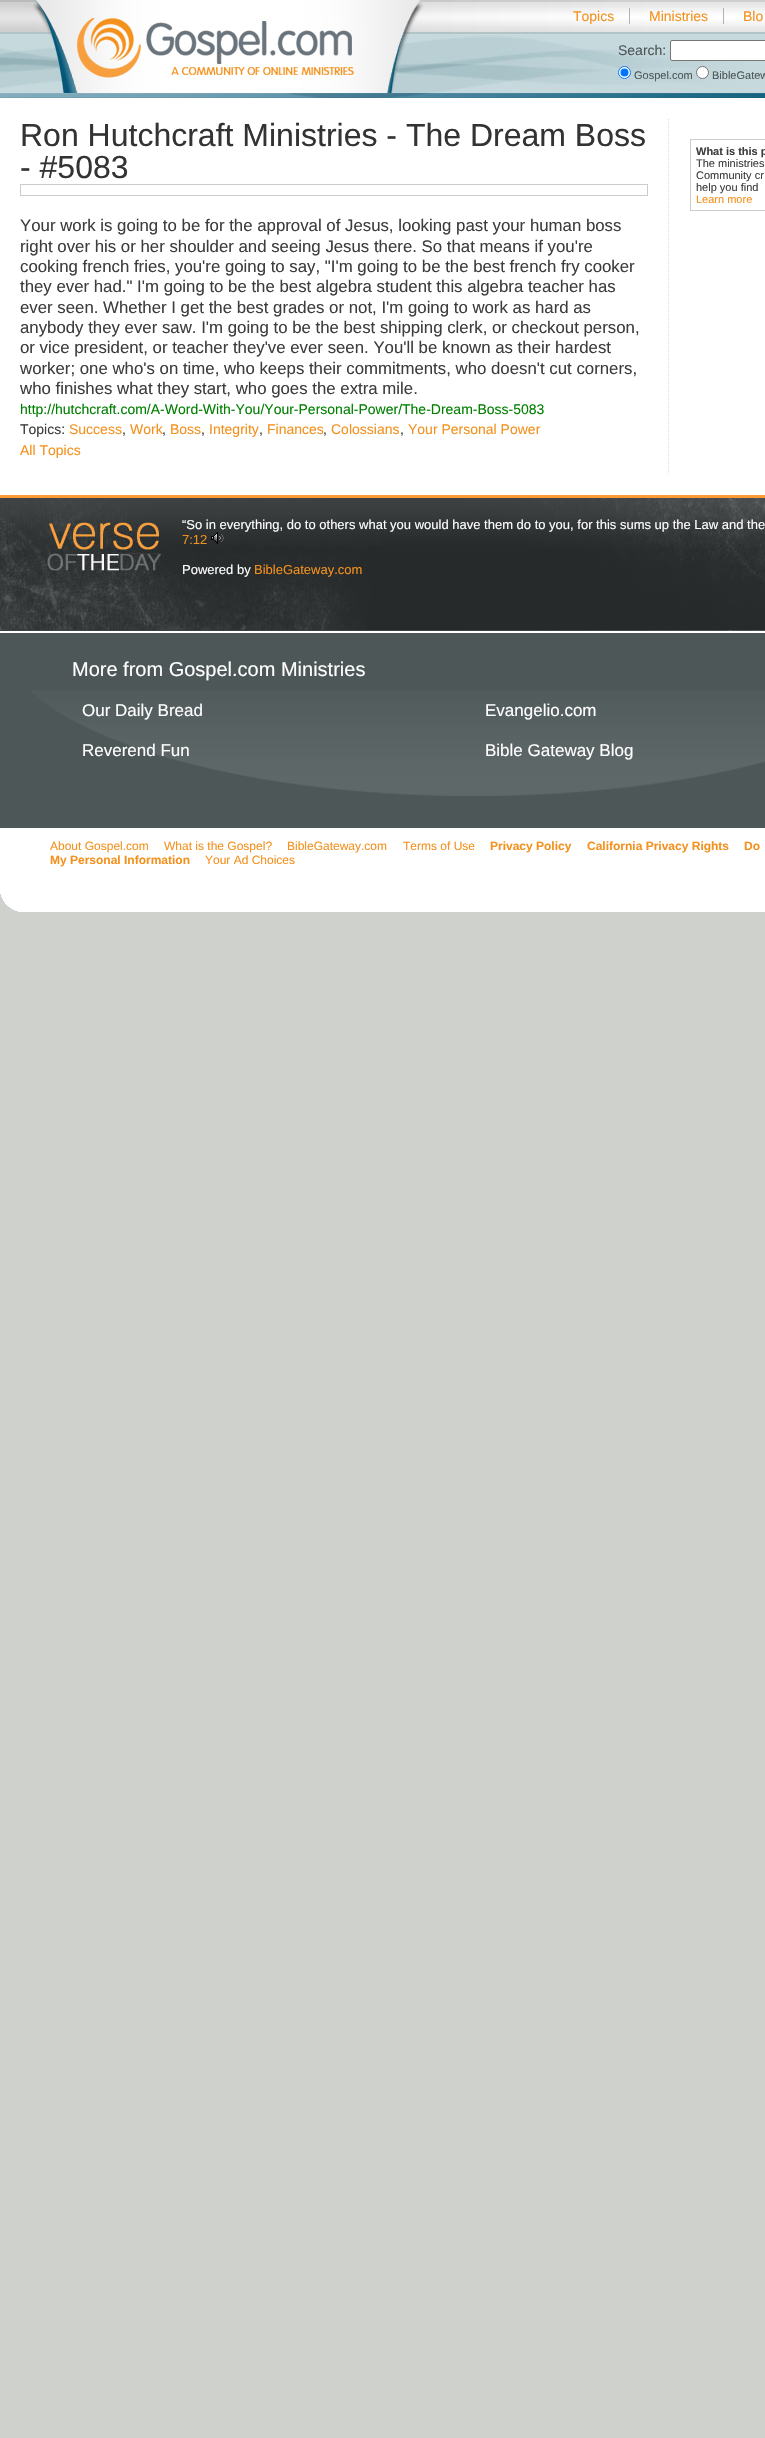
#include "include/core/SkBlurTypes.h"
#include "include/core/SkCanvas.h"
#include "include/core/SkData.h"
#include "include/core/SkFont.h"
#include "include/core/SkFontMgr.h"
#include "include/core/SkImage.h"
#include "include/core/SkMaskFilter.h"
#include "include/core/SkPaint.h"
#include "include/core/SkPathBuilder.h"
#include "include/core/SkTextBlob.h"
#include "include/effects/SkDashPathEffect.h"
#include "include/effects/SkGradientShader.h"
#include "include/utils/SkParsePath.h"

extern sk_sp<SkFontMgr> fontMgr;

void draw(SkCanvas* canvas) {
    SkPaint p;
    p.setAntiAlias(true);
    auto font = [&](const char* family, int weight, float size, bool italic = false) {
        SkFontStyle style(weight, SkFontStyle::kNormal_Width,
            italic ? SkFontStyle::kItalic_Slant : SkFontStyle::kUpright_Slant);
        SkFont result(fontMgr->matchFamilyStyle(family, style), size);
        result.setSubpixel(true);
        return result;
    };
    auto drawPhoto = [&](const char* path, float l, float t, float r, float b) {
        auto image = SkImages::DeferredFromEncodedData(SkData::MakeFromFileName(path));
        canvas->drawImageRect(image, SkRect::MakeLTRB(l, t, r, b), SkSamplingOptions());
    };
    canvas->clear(0xFFCFD1CC);
    drawPhoto("media/1.png", 0, 0, 765, 98);
    auto font1 = font("Liberation Sans", 400, 14);
    p.setColor(0xFFF4911D);
    canvas->drawString("Topics", 573, 21, font1, p);
    p.setColor(0xFFB2B2B2);
    canvas->drawRect(SkRect::MakeLTRB(629, 8, 630, 24), p);
    p.setColor(0xFFF4911D);
    canvas->drawString("Ministries", 649, 21, font1, p);
    p.setColor(0xFFB2B2B2);
    canvas->drawRect(SkRect::MakeLTRB(723, 8, 724, 24), p);
    p.setColor(0xFFF4911D);
    canvas->drawString("Blo", 743, 21, font1, p);
    p.setColor(0xFF4D5758);
    canvas->drawString("Search:", 618, 55, font1, p);
    p.setColor(0xFFFFFFFF);
    canvas->drawRoundRect(SkRect::MakeLTRB(670.5f, 40.5f, 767.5f, 60.5f), 1.5f, 1.5f, p);
    p.setStyle(SkPaint::kStroke_Style);
    p.setStrokeWidth(1);
    p.setColor(0xFF767676);
    canvas->drawRoundRect(SkRect::MakeLTRB(670.5f, 40.5f, 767.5f, 60.5f), 1.5f, 1.5f, p);
    p.setStyle(SkPaint::kFill_Style);
    p.setColor(0xFFFFFFFF);
    canvas->drawCircle(624.5f, 72.5f, 6, p);
    p.setStyle(SkPaint::kStroke_Style);
    p.setColor(0xFF0075FF);
    canvas->drawCircle(624.5f, 72.5f, 6, p);
    p.setStyle(SkPaint::kFill_Style);
    canvas->drawCircle(624.5f, 72.5f, 4, p);
    auto font2 = font("Liberation Sans", 400, 11);
    p.setColor(0xFF4D5758);
    canvas->drawString("Gospel.com", 634, 79, font2, p);
    p.setColor(0xFFFFFFFF);
    canvas->drawCircle(702.5f, 72.5f, 6, p);
    p.setStyle(SkPaint::kStroke_Style);
    p.setColor(0xFF767676);
    canvas->drawCircle(702.5f, 72.5f, 6, p);
    p.setStyle(SkPaint::kFill_Style);
    p.setColor(0xFF4D5758);
    canvas->drawString("BibleGatew", 712, 79, font2, p);
    p.setColor(0xFFFFFFFF);
    canvas->drawRect(SkRect::MakeLTRB(0, 98, 765, 495), p);
    p.setStyle(SkPaint::kStroke_Style);
    p.setColor(0xFFDDDDDD);
    p.setPathEffect(SkDashPathEffect::Make({{1, 1}}, 0));
    canvas->drawPath(SkPathBuilder().moveTo(668.5f, 119).lineTo(668.5f, 475).detach(), p);
    p.setPathEffect(nullptr);
    auto font3 = font("Liberation Sans", 400, 32);
    p.setStyle(SkPaint::kFill_Style);
    p.setColor(0xFF333333);
    canvas->drawString("Ron Hutchcraft Ministries - The Dream Boss", 20, 146, font3, p);
    canvas->drawString("- #5083", 20, 178, font3, p);
    p.setStyle(SkPaint::kStroke_Style);
    p.setColor(0xFFCCCCCC);
    canvas->drawRect(SkRect::MakeLTRB(20.5f, 184.5f, 647.5f, 195.5f), p);
    auto font4 = font("Liberation Sans", 400, 16.8f);
    p.setStyle(SkPaint::kFill_Style);
    p.setColor(0xFF3D3D3D);
    {
        const struct { const char* s; float x, y; } items[] = {
            {"Your work is going to be for the approval of Jesus, looking past your human boss", 20, 231},
            {"right over his or her shoulder and seeing Jesus there. So that means if you're", 20, 252},
            {"cooking french fries, you're going to say, \"I'm going to be the best french fry cooker", 20, 272},
            {"they ever had.\" I'm going to be the best algebra student this algebra teacher has", 20, 292},
            {"ever seen. Whether I get the best grades or not, I'm going to work as hard as", 20, 313},
            {"anybody they ever saw. I'm going to be the best shipping clerk, or checkout person,", 20, 333},
            {"or vice president, or teacher they've ever seen. You'll be known as their hardest", 20, 353},
            {"worker; one who's on time, who keeps their commitments, who doesn't cut corners,", 20, 374},
            {"who finishes what they start, who goes the extra mile.", 20, 394},
        };
        for (auto [s, x, y] : items) {
            canvas->drawString(s, x, y, font4, p);
        }
    }
    p.setColor(0xFF008000);
    canvas->drawString("http://hutchcraft.com/A-Word-With-You/Your-Personal-Power/The-Dream-Boss-5083", 20, 414, font1, p);
    p.setColor(0xFF3D3D3D);
    canvas->drawString("Topics:", 20, 434, font1, p);
    p.setColor(0xFFF4911D);
    canvas->drawString("Success", 69, 434, font1, p);
    p.setColor(0xFF3D3D3D);
    canvas->drawString(",", 122, 434, font1, p);
    p.setColor(0xFFF4911D);
    canvas->drawString("Work", 130, 434, font1, p);
    p.setColor(0xFF3D3D3D);
    canvas->drawString(",", 162, 434, font1, p);
    p.setColor(0xFFF4911D);
    canvas->drawString("Boss", 170, 434, font1, p);
    p.setColor(0xFF3D3D3D);
    canvas->drawString(",", 201, 434, font1, p);
    p.setColor(0xFFF4911D);
    canvas->drawString("Integrity", 209, 434, font1, p);
    p.setColor(0xFF3D3D3D);
    canvas->drawString(",", 259, 434, font1, p);
    p.setColor(0xFFF4911D);
    canvas->drawString("Finances", 267, 434, font1, p);
    p.setColor(0xFF3D3D3D);
    canvas->drawString(",", 323, 434, font1, p);
    p.setColor(0xFFF4911D);
    canvas->drawString("Colossians", 331, 434, font1, p);
    p.setColor(0xFF3D3D3D);
    canvas->drawString(",", 400, 434, font1, p);
    p.setColor(0xFFF4911D);
    canvas->drawString("Your Personal Power", 408, 434, font1, p);
    canvas->drawString("All Topics", 20, 455, font1, p);
    p.setStyle(SkPaint::kStroke_Style);
    p.setColor(0xFFCCCCCC);
    canvas->drawRect(SkRect::MakeLTRB(690.5f, 139.5f, 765.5f, 210.5f), p);
    auto font5 = font("Liberation Sans", 700, 11);
    p.setStyle(SkPaint::kFill_Style);
    p.setColor(0xFF3D3D3D);
    canvas->drawString("What is this p", 696, 155, font5, p);
    {
        const struct { const char* s; float x, y; } items[] = {
            {"The ministries", 696, 167},
            {"Community cr", 696, 179},
            {"help you find", 696, 191},
        };
        for (auto [s, x, y] : items) {
            canvas->drawString(s, x, y, font2, p);
        }
    }
    p.setColor(0xFFF4911D);
    canvas->drawString("Learn more", 696, 203, font2, p);
    p.setColor(0xFFFF9933);
    canvas->drawRect(SkRect::MakeLTRB(0, 495, 765, 498), p);
    drawPhoto("media/2.png", 0, 498, 765, 631);
    auto font6 = font("Liberation Sans", 400, 13);
    p.setColor(0xFFFFFFFF);
    canvas->drawString("“So in everything, do to others what you would have them do to you, for this sums up the Law and the", 182, 529, font6, p);
    p.setColor(0xFFF4911D);
    canvas->drawString("7:12", 182, 544, font6, p);
    drawPhoto("media/3.png", 211, 532, 224, 544);
    p.setColor(0xFFFFFFFF);
    canvas->drawString("Powered by", 182, 574, font6, p);
    p.setColor(0xFFF4911D);
    canvas->drawString("BibleGateway.com", 254, 574, font6, p);
    p.setColor(0xFFFFFFFF);
    canvas->drawRect(SkRect::MakeLTRB(0, 631, 765, 633), p);
    p.setColor(0xFF4D5758);
    canvas->drawRect(SkRect::MakeLTRB(0, 633, 765, 828), p);
    drawPhoto("media/4.png", 31, 690, 765, 796);
    auto font7 = font("Liberation Sans", 400, 20);
    p.setColor(0xFFFFFFFF);
    canvas->drawString("More from Gospel.com Ministries", 72, 676, font7, p);
    auto font8 = font("Liberation Sans", 400, 17);
    {
        const struct { const char* s; float x, y; } items[] = {
            {"Our Daily Bread", 82, 716},
            {"Evangelio.com", 485, 716},
            {"Reverend Fun", 82, 756},
            {"Bible Gateway Blog", 485, 756},
        };
        for (auto [s, x, y] : items) {
            canvas->drawString(s, x, y, font8, p);
        }
    }
    drawPhoto("media/5.png", 0, 828, 765, 912);
    auto font9 = font("Liberation Sans", 400, 12);
    p.setColor(0xFFF4911D);
    {
        const struct { const char* s; float x, y; } items[] = {
            {"About Gospel.com", 50, 850},
            {"What is the Gospel?", 164, 850},
            {"BibleGateway.com", 287, 850},
            {"Terms of Use", 403, 850},
        };
        for (auto [s, x, y] : items) {
            canvas->drawString(s, x, y, font9, p);
        }
    }
    auto font10 = font("Liberation Sans", 700, 12);
    {
        const struct { const char* s; float x, y; } items[] = {
            {"Privacy Policy", 490, 850},
            {"California Privacy Rights", 587, 850},
            {"Do", 744, 850},
            {"My Personal Information", 50, 864},
        };
        for (auto [s, x, y] : items) {
            canvas->drawString(s, x, y, font10, p);
        }
    }
    canvas->drawString("Your Ad Choices", 205, 864, font9, p);
}
